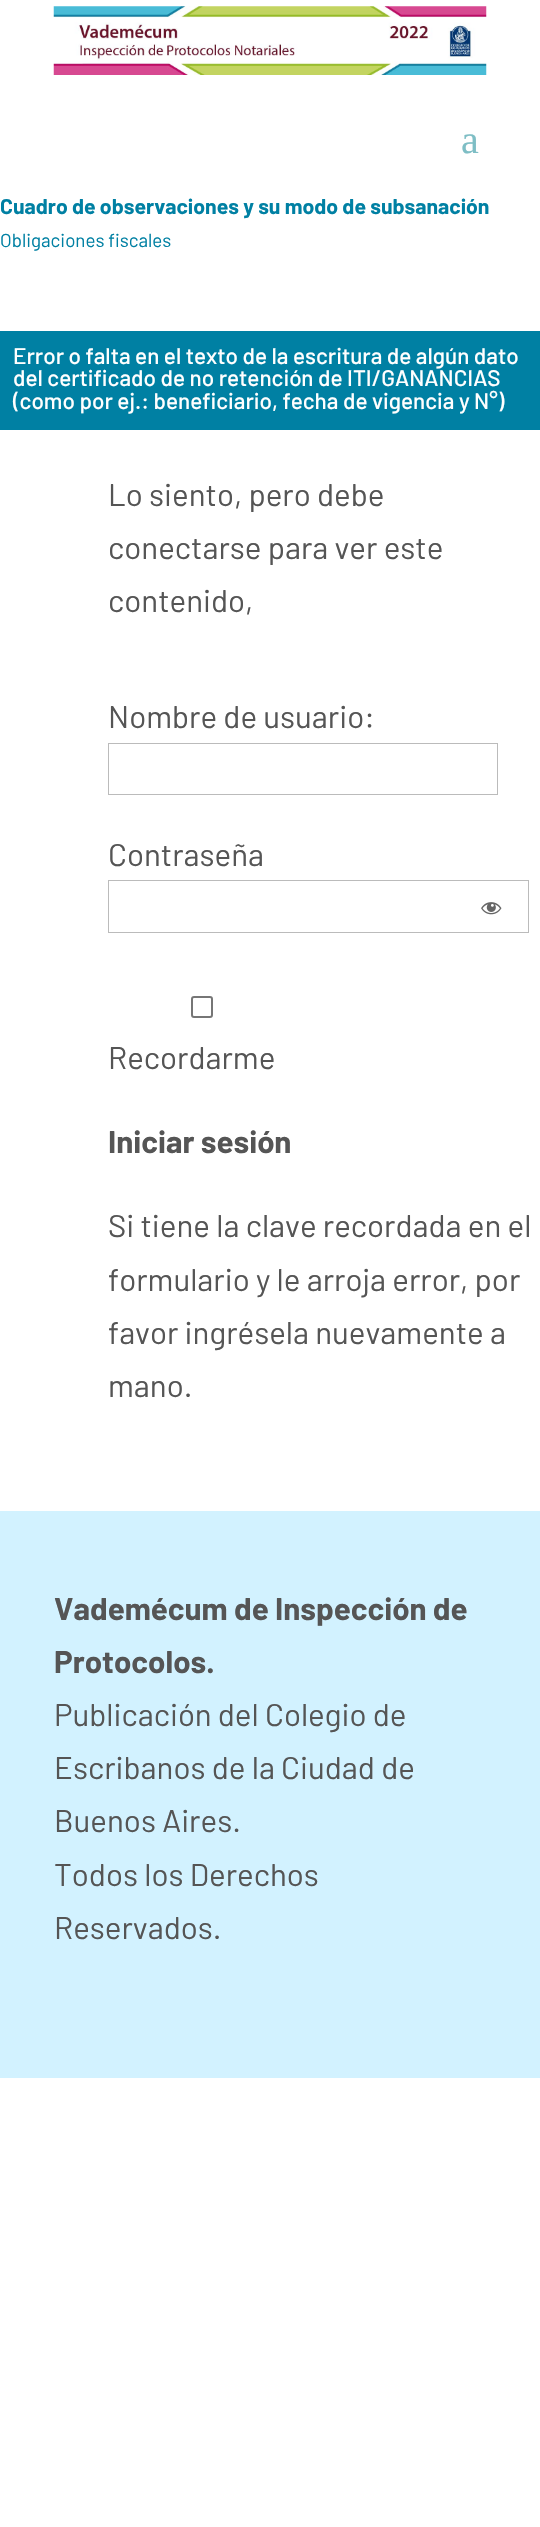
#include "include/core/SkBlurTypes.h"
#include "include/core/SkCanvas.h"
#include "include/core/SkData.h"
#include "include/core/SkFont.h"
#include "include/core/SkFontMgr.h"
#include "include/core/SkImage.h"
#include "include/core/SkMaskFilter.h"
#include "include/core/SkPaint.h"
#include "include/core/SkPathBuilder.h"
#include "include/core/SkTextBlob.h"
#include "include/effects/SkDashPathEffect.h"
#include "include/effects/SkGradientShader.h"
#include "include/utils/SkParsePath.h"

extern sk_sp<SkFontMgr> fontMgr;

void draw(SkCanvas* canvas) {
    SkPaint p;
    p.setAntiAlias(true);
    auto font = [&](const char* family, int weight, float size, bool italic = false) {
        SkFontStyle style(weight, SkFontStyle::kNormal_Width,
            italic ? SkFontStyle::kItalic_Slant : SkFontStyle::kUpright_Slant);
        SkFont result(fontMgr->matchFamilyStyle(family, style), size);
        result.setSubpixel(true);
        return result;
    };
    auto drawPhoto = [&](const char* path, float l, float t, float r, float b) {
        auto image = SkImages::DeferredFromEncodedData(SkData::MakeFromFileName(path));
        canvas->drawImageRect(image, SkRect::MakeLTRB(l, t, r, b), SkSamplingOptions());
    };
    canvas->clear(0xFFFFFFFF);
    drawPhoto("media/1.png", 53, 6, 487, 75);
    auto font1 = font("Liberation Serif", 400, 40);
    p.setColor(0xFF7EBEC5);
    canvas->drawString("a", 461, 153, font1, p);
    auto font2 = font("Barlow", 700, 21.25f);
    p.setColor(0xFF0080A3);
    canvas->drawString("Cuadro de observaciones y su modo de subsanación", 0, 214, font2, p);
    auto font3 = font("Barlow", 400, 18.75f);
    canvas->drawString("Obligaciones fiscales", 0, 247, font3, p);
    canvas->drawRect(SkRect::MakeLTRB(0, 331, 540, 430), p);
    auto font4 = font("Barlow", 500, 22.5f);
    p.setColor(0xFFFFFFFF);
    {
        const struct { const char* s; float x, y; } items[] = {
            {"Error o falta en el texto de la escritura de algún dato", 13, 364},
            {"del certificado de no retención de ITI/GANANCIAS", 13, 386},
            {"(como por ej.: beneficiario, fecha de vigencia y N°)", 13, 409},
        };
        for (auto [s, x, y] : items) {
            canvas->drawString(s, x, y, font4, p);
        }
    }
    auto font5 = font("Barlow", 400, 31.25f);
    p.setColor(0xFF555555);
    {
        const struct { const char* s; float x, y; } items[] = {
            {"Lo siento, pero debe", 108, 506},
            {"conectarse para ver este", 108, 559},
            {"contenido,", 108, 612},
            {"Nombre de usuario:", 108, 728},
        };
        for (auto [s, x, y] : items) {
            canvas->drawString(s, x, y, font5, p);
        }
    }
    p.setStyle(SkPaint::kStroke_Style);
    p.setStrokeWidth(1);
    p.setColor(0xFFBBBBBB);
    canvas->drawRect(SkRect::MakeLTRB(108.5f, 743.5f, 497.5f, 794.5f), p);
    p.setStyle(SkPaint::kFill_Style);
    p.setColor(0xFF555555);
    canvas->drawString("Contraseña", 108, 866, font5, p);
    p.setStyle(SkPaint::kStroke_Style);
    p.setColor(0xFFBBBBBB);
    canvas->drawRect(SkRect::MakeLTRB(108.5f, 880.5f, 528.5f, 932.5f), p);
    drawPhoto("media/2.png", 481, 902, 502, 915);
    p.setStrokeWidth(2);
    p.setColor(0xFF767676);
    canvas->drawRoundRect(SkRect::MakeLTRB(192, 997, 212, 1017), 2, 2, p);
    p.setStyle(SkPaint::kFill_Style);
    p.setColor(0xFF555555);
    canvas->drawString("Recordarme", 108, 1069, font5, p);
    auto font6 = font("Barlow", 700, 31.25f);
    canvas->drawString("Iniciar sesión", 108, 1153, font6, p);
    {
        const struct { const char* s; float x, y; } items[] = {
            {"Si tiene la clave recordada en el", 108, 1237},
            {"formulario y le arroja error, por", 108, 1291},
            {"favor ingrésela nuevamente a", 108, 1344},
            {"mano.", 108, 1397},
        };
        for (auto [s, x, y] : items) {
            canvas->drawString(s, x, y, font5, p);
        }
    }
    p.setColor(0xFFD2F2FF);
    canvas->drawRect(SkRect::MakeLTRB(0, 1511, 540, 2078), p);
    p.setColor(0xFF555555);
    canvas->drawString("Vademécum de Inspección de", 54, 1620, font6, p);
    canvas->drawString("Protocolos.", 54, 1673, font6, p);
    {
        const struct { const char* s; float x, y; } items[] = {
            {"Publicación del Colegio de", 54, 1726},
            {"Escribanos de la Ciudad de", 54, 1779},
            {"Buenos Aires.", 54, 1832},
            {"Todos los Derechos", 54, 1886},
            {"Reservados.", 54, 1939},
        };
        for (auto [s, x, y] : items) {
            canvas->drawString(s, x, y, font5, p);
        }
    }
}
